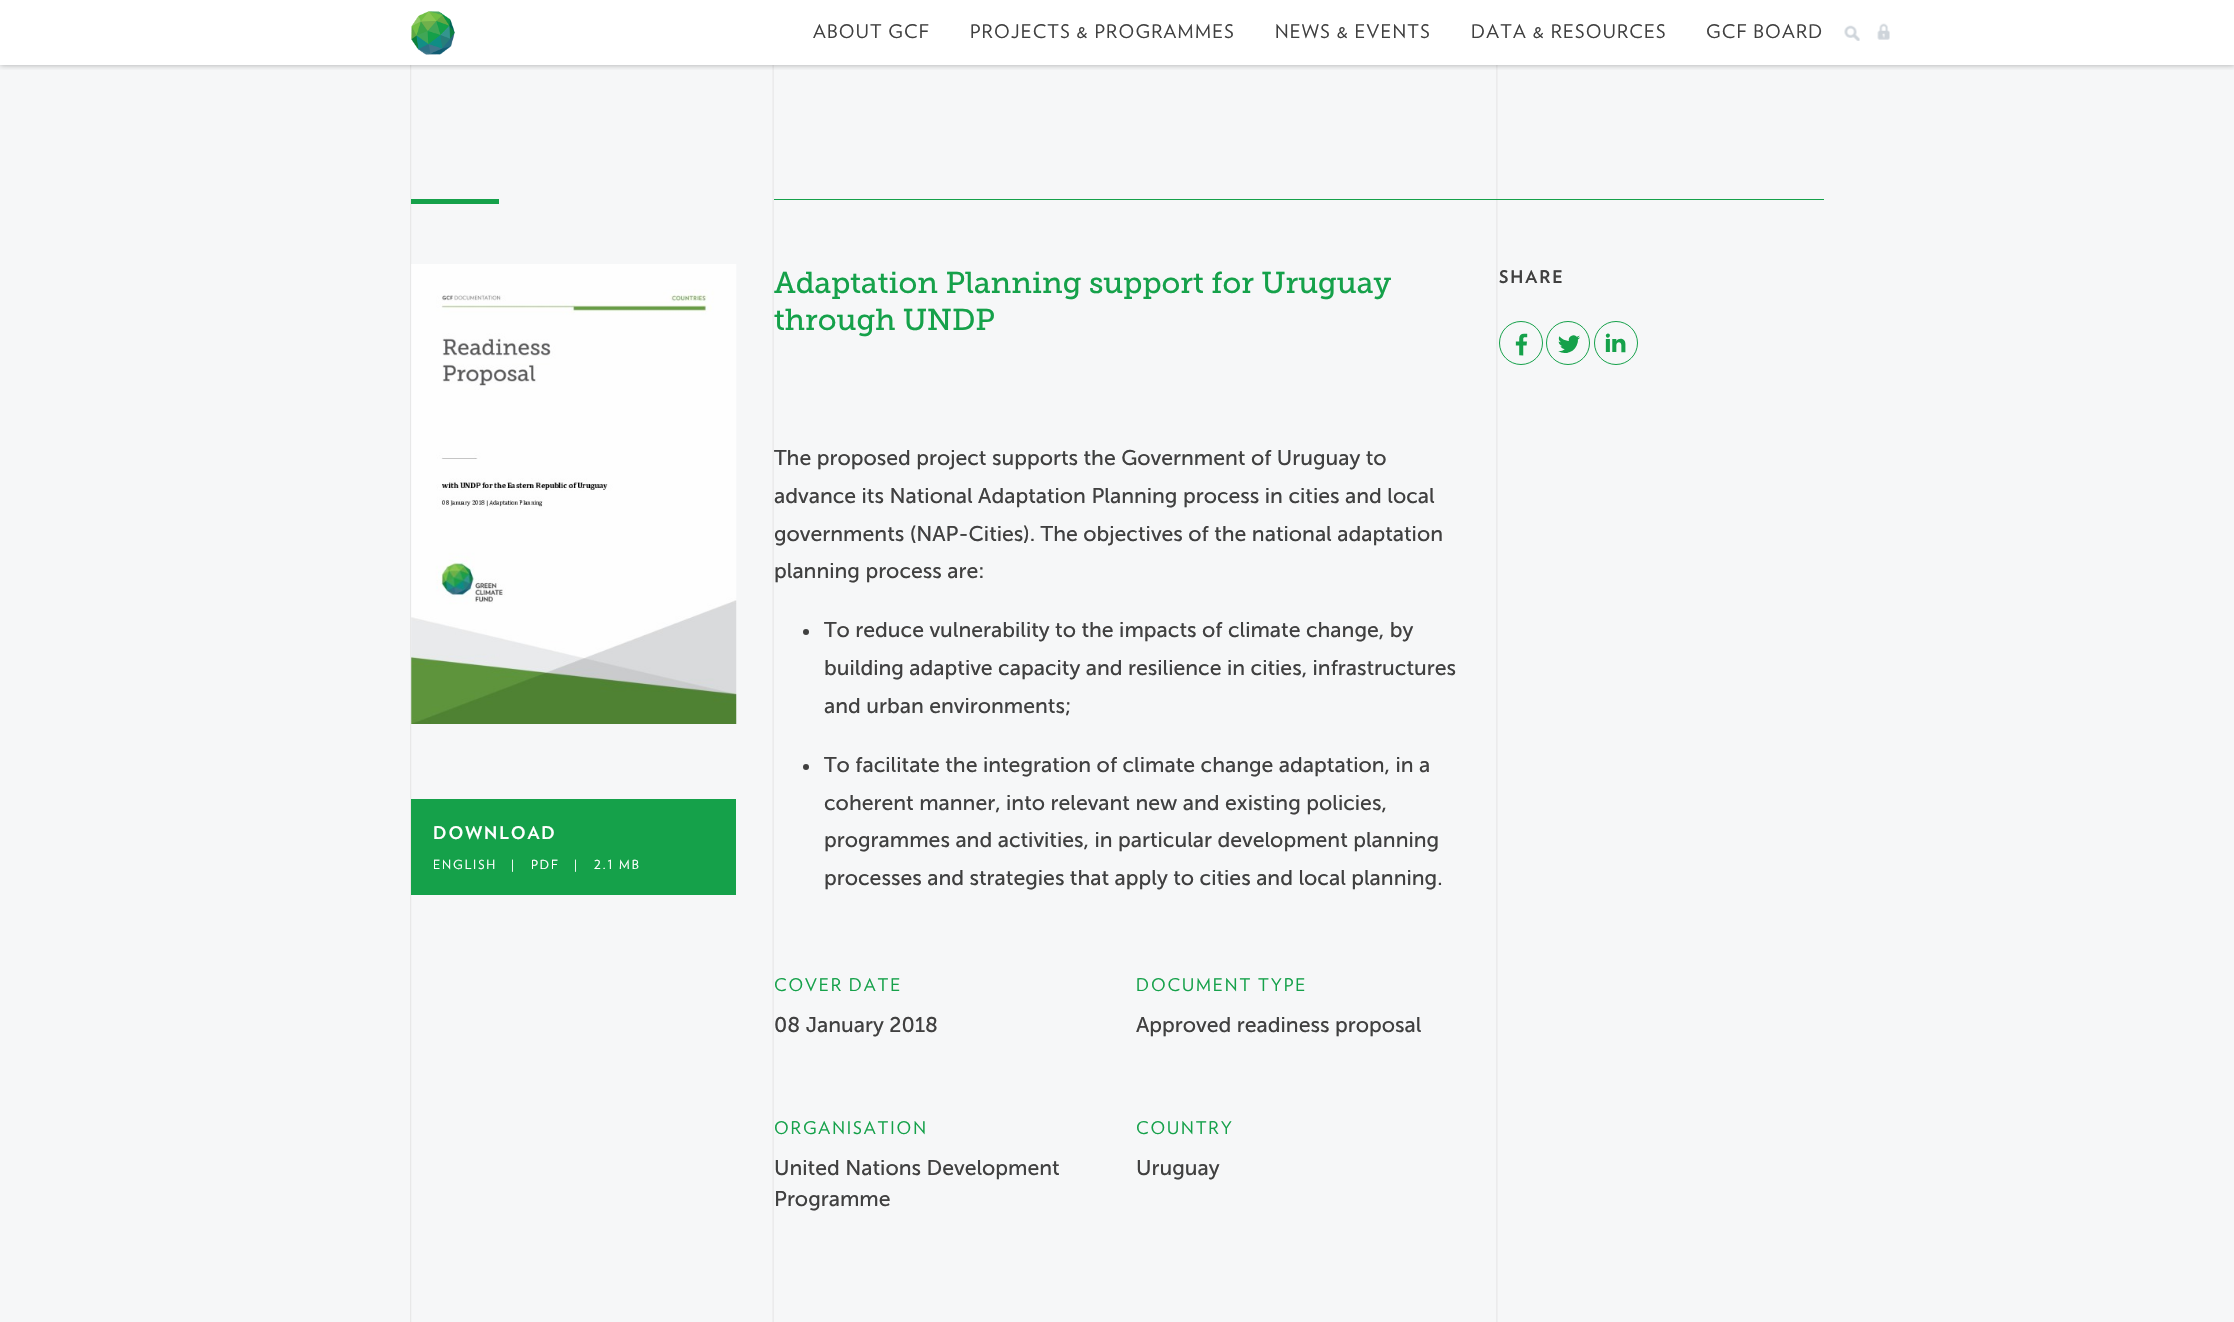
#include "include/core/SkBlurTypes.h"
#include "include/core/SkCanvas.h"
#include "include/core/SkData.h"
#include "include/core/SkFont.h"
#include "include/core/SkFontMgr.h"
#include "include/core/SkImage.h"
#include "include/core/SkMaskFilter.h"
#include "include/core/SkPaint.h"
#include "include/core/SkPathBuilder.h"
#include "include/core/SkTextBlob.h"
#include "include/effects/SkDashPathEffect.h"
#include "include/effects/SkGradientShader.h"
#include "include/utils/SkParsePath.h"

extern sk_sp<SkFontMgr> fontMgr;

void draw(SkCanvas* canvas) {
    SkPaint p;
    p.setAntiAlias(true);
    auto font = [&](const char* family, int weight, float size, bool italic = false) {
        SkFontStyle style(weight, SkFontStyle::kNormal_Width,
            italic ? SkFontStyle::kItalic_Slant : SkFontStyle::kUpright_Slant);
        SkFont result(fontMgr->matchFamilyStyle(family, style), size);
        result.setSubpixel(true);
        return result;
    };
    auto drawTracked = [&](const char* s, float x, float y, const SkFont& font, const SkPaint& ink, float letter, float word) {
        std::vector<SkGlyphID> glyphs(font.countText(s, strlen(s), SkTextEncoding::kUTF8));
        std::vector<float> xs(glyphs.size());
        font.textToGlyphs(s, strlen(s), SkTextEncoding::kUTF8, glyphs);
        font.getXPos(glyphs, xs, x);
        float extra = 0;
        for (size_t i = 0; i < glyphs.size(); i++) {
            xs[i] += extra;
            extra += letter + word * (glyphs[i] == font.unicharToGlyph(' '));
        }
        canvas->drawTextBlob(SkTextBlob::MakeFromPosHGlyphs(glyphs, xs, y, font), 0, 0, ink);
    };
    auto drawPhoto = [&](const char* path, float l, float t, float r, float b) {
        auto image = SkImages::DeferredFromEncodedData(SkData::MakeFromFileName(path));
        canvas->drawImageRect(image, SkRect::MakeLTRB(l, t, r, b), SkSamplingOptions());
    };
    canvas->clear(0xFFF6F7F8);
    drawPhoto("media/1.png", 410, 0, 1498, 1322);
    canvas->save();
    canvas->clipRect(SkRect::MakeLTRB(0, 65, 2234, 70));
    p.setColor(0x52000000);
    p.setMaskFilter(SkMaskFilter::MakeBlur(kNormal_SkBlurStyle, 3));
    canvas->drawRect(SkRect::MakeLTRB(0, 0, 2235, 65), p);
    p.setMaskFilter(nullptr);
    canvas->restore();
    p.setColor(0xFAFFFFFF);
    canvas->drawRect(SkRect::MakeLTRB(0, 0, 2234, 65), p);
    drawPhoto("media/2.png", 411, 11, 455, 55);
    auto font1 = font("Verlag", 400, 18.75f);
    p.setColor(0xFF404040);
    {
        const struct { const char* s; float x, y; } items[] = {
            {"ABOUT GCF", 813, 38},
            {"PROJECTS & PROGRAMMES", 970, 38},
            {"NEWS & EVENTS", 1275, 38},
            {"DATA & RESOURCES", 1471, 38},
            {"GCF BOARD", 1706, 38},
        };
        for (auto [s, x, y] : items) {
            drawTracked(s, x, y, font1, p, 1.25f, 0);
        }
    }
    drawPhoto("media/3.png", 1844, 25, 1860, 41);
    drawPhoto("media/4.png", 1877, 23, 1890, 40);
    p.setColor(0xFF15A14A);
    canvas->drawRect(SkRect::MakeLTRB(411, 199, 499, 204), p);
    canvas->drawRect(SkRect::MakeLTRB(774, 199, 1824, 200), p);
    drawPhoto("media/5.png", 411, 264, 737, 724);
    canvas->drawRect(SkRect::MakeLTRB(411, 799, 736, 895), p);
    auto font2 = font("Verlag", 700, 17.5f);
    p.setColor(0xFFFFFFFF);
    drawTracked("DOWNLOAD", 433, 839, font2, p, 1.9f, 0);
    auto font3 = font("Verlag", 400, 12.5f);
    {
        const struct { const char* s; float x, y; } items[] = {
            {"ENGLISH", 433, 869},
            {"|", 511, 869},
            {"PDF", 531, 869},
            {"|", 574, 869},
        };
        for (auto [s, x, y] : items) {
            drawTracked(s, x, y, font3, p, 1.9f, 0);
        }
    }
    auto font4 = font("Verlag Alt", 400, 12.5f);
    drawTracked("2.1 MB", 594, 869, font4, p, 1.9f, 0);
    auto font5 = font("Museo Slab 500", 400, 30);
    p.setColor(0xFF15A14A);
    canvas->drawString("Adaptation Planning support for Uruguay", 774, 293, font5, p);
    canvas->drawString("through UNDP", 774, 330, font5, p);
    auto font6 = font("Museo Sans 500", 400, 21.25f);
    p.setColor(0xFF404040);
    {
        const struct { const char* s; float x, y; } items[] = {
            {"The proposed project supports the Government of Uruguay to", 774, 465},
            {"advance its National Adaptation Planning process in cities and local", 774, 503},
            {"governments (NAP-Cities). The objectives of the national adaptation", 774, 541},
            {"planning process are:", 774, 578},
        };
        for (auto [s, x, y] : items) {
            canvas->drawString(s, x, y, font6, p);
        }
    }
    canvas->drawCircle(806, 632, 3, p);
    {
        const struct { const char* s; float x, y; } items[] = {
            {"To reduce vulnerability to the impacts of climate change, by", 824, 637},
            {"building adaptive capacity and resilience in cities, infrastructures", 824, 675},
            {"and urban environments;", 824, 713},
        };
        for (auto [s, x, y] : items) {
            canvas->drawString(s, x, y, font6, p);
        }
    }
    canvas->drawCircle(806, 767, 3, p);
    {
        const struct { const char* s; float x, y; } items[] = {
            {"To facilitate the integration of climate change adaptation, in a", 824, 772},
            {"coherent manner, into relevant new and existing policies,", 824, 810},
            {"programmes and activities, in particular development planning", 824, 847},
            {"processes and strategies that apply to cities and local planning.", 824, 885},
        };
        for (auto [s, x, y] : items) {
            canvas->drawString(s, x, y, font6, p);
        }
    }
    auto font7 = font("Verlag", 400, 17.5f);
    p.setColor(0xFF15A14A);
    drawTracked("COVER DATE", 774, 991, font7, p, 1.9f, 0);
    p.setColor(0xFF404040);
    canvas->drawString("08 January 2018", 774, 1032, font6, p);
    p.setColor(0xFF15A14A);
    drawTracked("DOCUMENT TYPE", 1136, 991, font7, p, 1.9f, 0);
    p.setColor(0xFF404040);
    canvas->drawString("Approved readiness proposal", 1136, 1032, font6, p);
    p.setColor(0xFF15A14A);
    drawTracked("ORGANISATION", 774, 1134, font7, p, 1.9f, 0);
    p.setColor(0xFF404040);
    canvas->drawString("United Nations Development", 774, 1175, font6, p);
    canvas->drawString("Programme", 774, 1206, font6, p);
    p.setColor(0xFF15A14A);
    drawTracked("COUNTRY", 1136, 1134, font7, p, 1.9f, 0);
    p.setColor(0xFF404040);
    canvas->drawString("Uruguay", 1136, 1175, font6, p);
    drawTracked("SHARE", 1499, 283, font2, p, 1.9f, 0);
    p.setStyle(SkPaint::kStroke_Style);
    p.setStrokeWidth(1);
    p.setColor(0xFF15A14A);
    canvas->drawCircle(1521, 343, 21.5f, p);
    drawPhoto("media/6.png", 1515, 333, 1528, 356);
    canvas->drawCircle(1568, 343, 21.5f, p);
    drawPhoto("media/7.png", 1558, 335, 1580, 353);
    canvas->drawCircle(1616, 343, 21.5f, p);
    drawPhoto("media/8.png", 1605, 333, 1626, 353);
}
